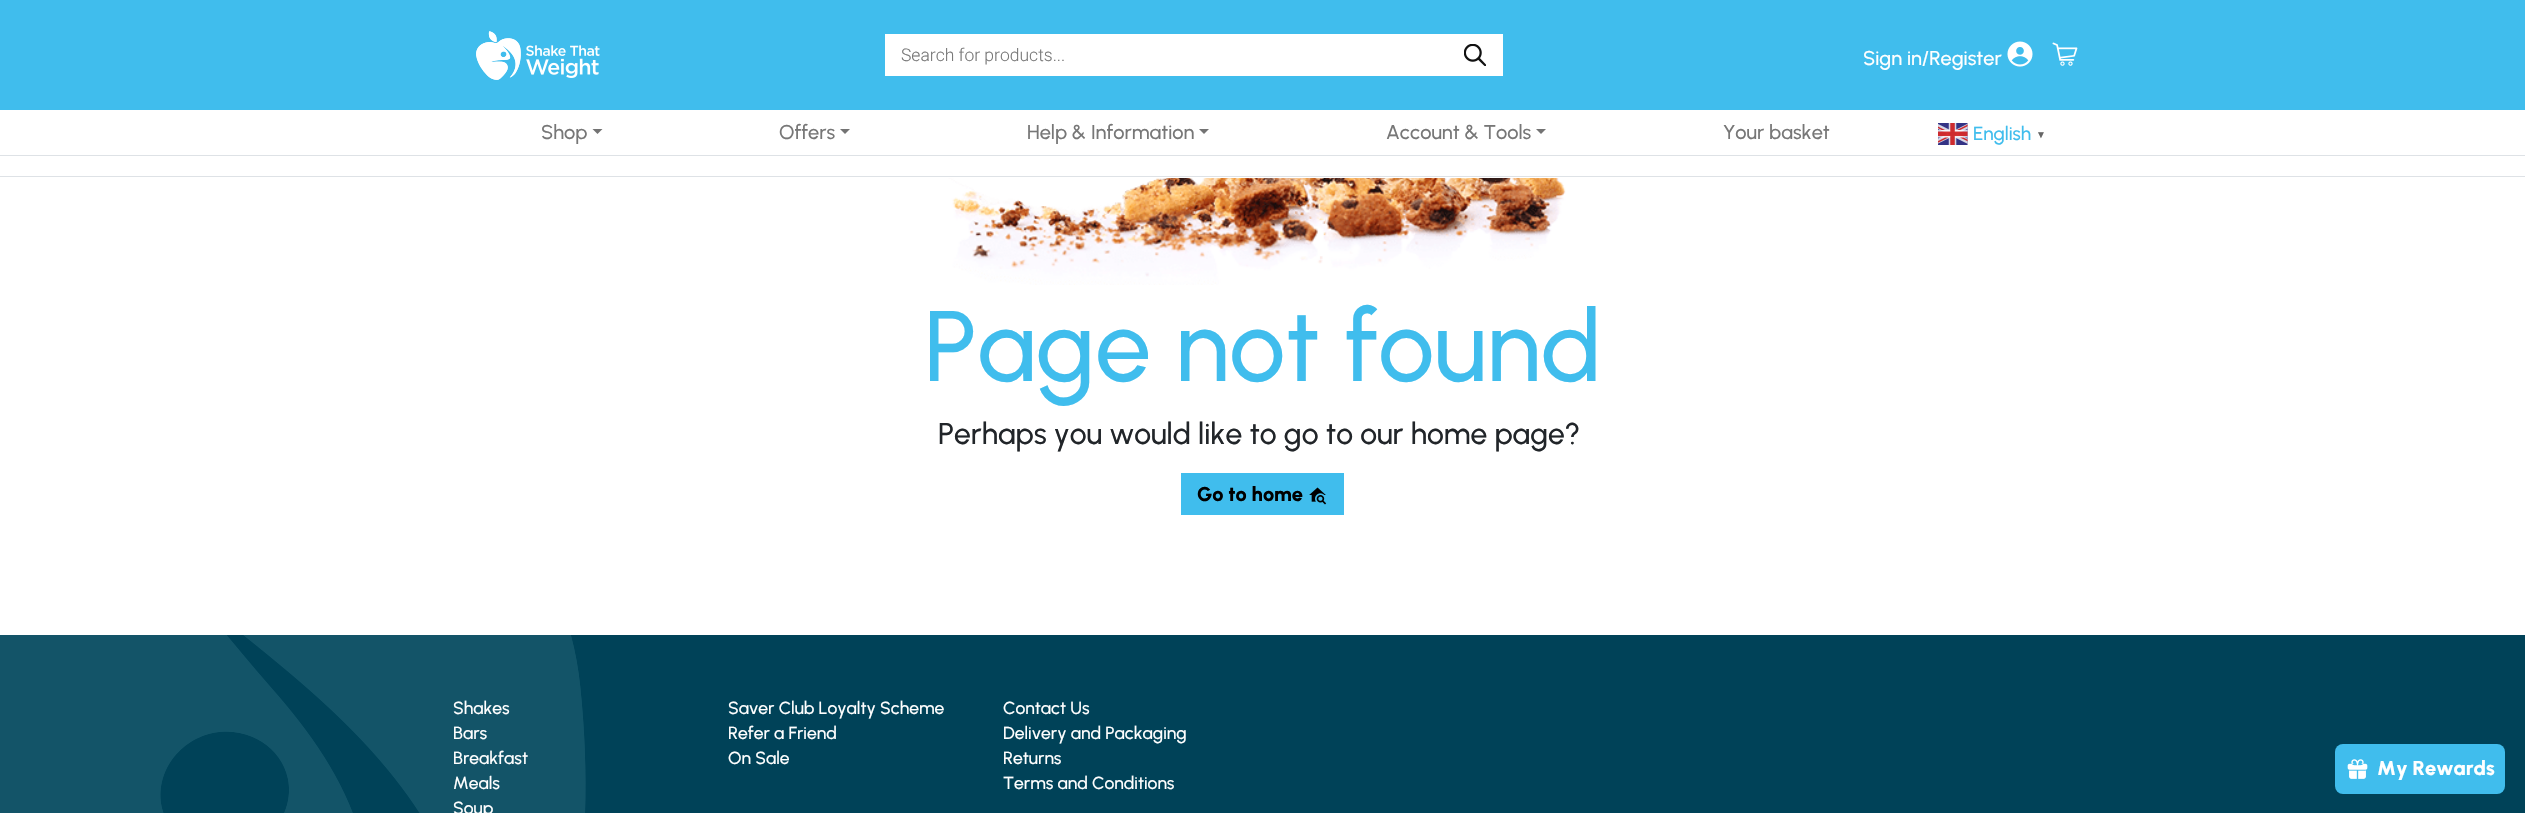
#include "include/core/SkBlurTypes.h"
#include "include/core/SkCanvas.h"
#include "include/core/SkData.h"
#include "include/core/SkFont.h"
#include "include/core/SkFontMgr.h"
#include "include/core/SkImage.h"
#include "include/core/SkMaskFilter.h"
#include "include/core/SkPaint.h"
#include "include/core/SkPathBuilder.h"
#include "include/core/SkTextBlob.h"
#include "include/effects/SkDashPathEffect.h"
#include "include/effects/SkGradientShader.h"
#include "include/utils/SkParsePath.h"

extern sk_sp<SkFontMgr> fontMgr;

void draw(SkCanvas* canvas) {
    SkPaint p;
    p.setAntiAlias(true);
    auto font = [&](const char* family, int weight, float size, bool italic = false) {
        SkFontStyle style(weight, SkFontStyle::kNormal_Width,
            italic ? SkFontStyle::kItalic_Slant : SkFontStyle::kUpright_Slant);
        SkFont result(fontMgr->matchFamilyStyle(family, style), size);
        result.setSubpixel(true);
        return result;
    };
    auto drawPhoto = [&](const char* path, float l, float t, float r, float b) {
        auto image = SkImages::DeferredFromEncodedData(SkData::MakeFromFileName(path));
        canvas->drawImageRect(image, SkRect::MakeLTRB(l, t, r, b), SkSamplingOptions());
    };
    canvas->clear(0xFFFFFFFF);
    p.setColor(0xFF40BDED);
    canvas->drawRect(SkRect::MakeLTRB(0, 0, 2525, 110), p);
    drawPhoto("media/1.png", 476, 31, 600, 80);
    p.setColor(0xFFFFFFFF);
    canvas->drawRect(SkRect::MakeLTRB(885, 34, 1503, 76), p);
    auto font1 = font("Roboto", 300, 17.5f);
    p.setColor(0xFF777777);
    canvas->drawString("Search for products...", 901, 61, font1, p);
    drawPhoto("media/2.png", 1464, 44, 1486, 66);
    auto font2 = font("Urbanist", 500, 20);
    p.setColor(0xFFFFFFFF);
    canvas->drawString("Sign in/Register", 1863, 65, font2, p);
    drawPhoto("media/3.png", 2007, 41, 2033, 67);
    drawPhoto("media/4.png", 2052, 42, 2078, 66);
    p.setColor(0xFFDEE2E6);
    canvas->drawRect(SkRect::MakeLTRB(0, 155, 2525, 156), p);
    p.setColor(0xFF777777);
    canvas->drawString("Shop", 541, 139, font2, p);
    p.setColor(0xFF737373);
    canvas->drawPath(SkPathBuilder().moveTo(592.5f, 129).lineTo(602.5f, 129).lineTo(597.5f, 134).close().detach(), p);
    p.setColor(0xFF777777);
    canvas->drawString("Offers", 779, 139, font2, p);
    p.setColor(0xFF737373);
    canvas->drawPath(SkPathBuilder().moveTo(840, 129).lineTo(850, 129).lineTo(845, 134).close().detach(), p);
    p.setColor(0xFF777777);
    canvas->drawString("Help & Information", 1027, 139, font2, p);
    p.setColor(0xFF737373);
    canvas->drawPath(SkPathBuilder().moveTo(1199, 129).lineTo(1209, 129).lineTo(1204, 134).close().detach(), p);
    p.setColor(0xFF777777);
    canvas->drawString("Account & Tools", 1386, 139, font2, p);
    p.setColor(0xFF737373);
    canvas->drawPath(SkPathBuilder().moveTo(1536, 129).lineTo(1546, 129).lineTo(1541, 134).close().detach(), p);
    p.setColor(0xFF777777);
    canvas->drawString("Your basket", 1723, 139, font2, p);
    drawPhoto("media/5.png", 1938, 123, 1968, 145);
    auto font3 = font("Urbanist", 500, 19);
    p.setColor(0xFF40BDED);
    canvas->drawString("English", 1973, 140, font3, p);
    auto font4 = font("Liberation Sans", 700, 10);
    p.setColor(0xFF666666);
    canvas->drawString("▼", 2036, 138, font4, p);
    p.setColor(0xFFDEE2E6);
    canvas->drawRect(SkRect::MakeLTRB(0, 176, 2525, 177), p);
    drawPhoto("media/6.png", 939, 178, 1566, 285);
    auto font5 = font("Urbanist", 500, 100);
    p.setColor(0xFF40BDED);
    canvas->drawString("Page not found", 924, 381, font5, p);
    auto font6 = font("Urbanist", 500, 30);
    p.setColor(0xFF212529);
    canvas->drawString("Perhaps you would like to go to our home page?", 938, 444, font6, p);
    p.setColor(0xFF40BDED);
    canvas->drawRect(SkRect::MakeLTRB(1181, 473, 1344, 515), p);
    auto font7 = font("Urbanist", 800, 20);
    p.setColor(0xFF000000);
    canvas->drawString("Go to home", 1197, 501, font7, p);
    drawPhoto("media/7.png", 1309, 487, 1327, 505);
    p.setColor(0xFF004258);
    canvas->drawRect(SkRect::MakeLTRB(160, 635, 2525, 813), p);
    drawPhoto("media/8.png", 0, 635, 586, 813);
    auto font8 = font("Urbanist", 500, 17.5f);
    p.setColor(0xFFFFFFFF);
    {
        const struct { const char* s; float x, y; } items[] = {
            {"Shakes", 453, 714},
            {"Bars", 453, 739},
            {"Breakfast", 453, 764},
            {"Meals", 453, 789},
            {"Soup", 453, 814},
            {"Saver Club Loyalty Scheme", 728, 714},
            {"Refer a Friend", 728, 739},
            {"On Sale", 728, 764},
            {"Contact Us", 1003, 714},
            {"Delivery and Packaging", 1003, 739},
            {"Returns", 1003, 764},
            {"Terms and Conditions", 1003, 789},
        };
        for (auto [s, x, y] : items) {
            canvas->drawString(s, x, y, font8, p);
        }
    }
    p.setColor(0xFF40BDED);
    canvas->drawRoundRect(SkRect::MakeLTRB(2335, 744, 2505, 794), 8, 8, p);
    drawPhoto("media/9.png", 2347, 759, 2368, 779);
    p.setColor(0xFFFFFFFF);
    canvas->drawString("My Rewards", 2377, 775, font7, p);
}
